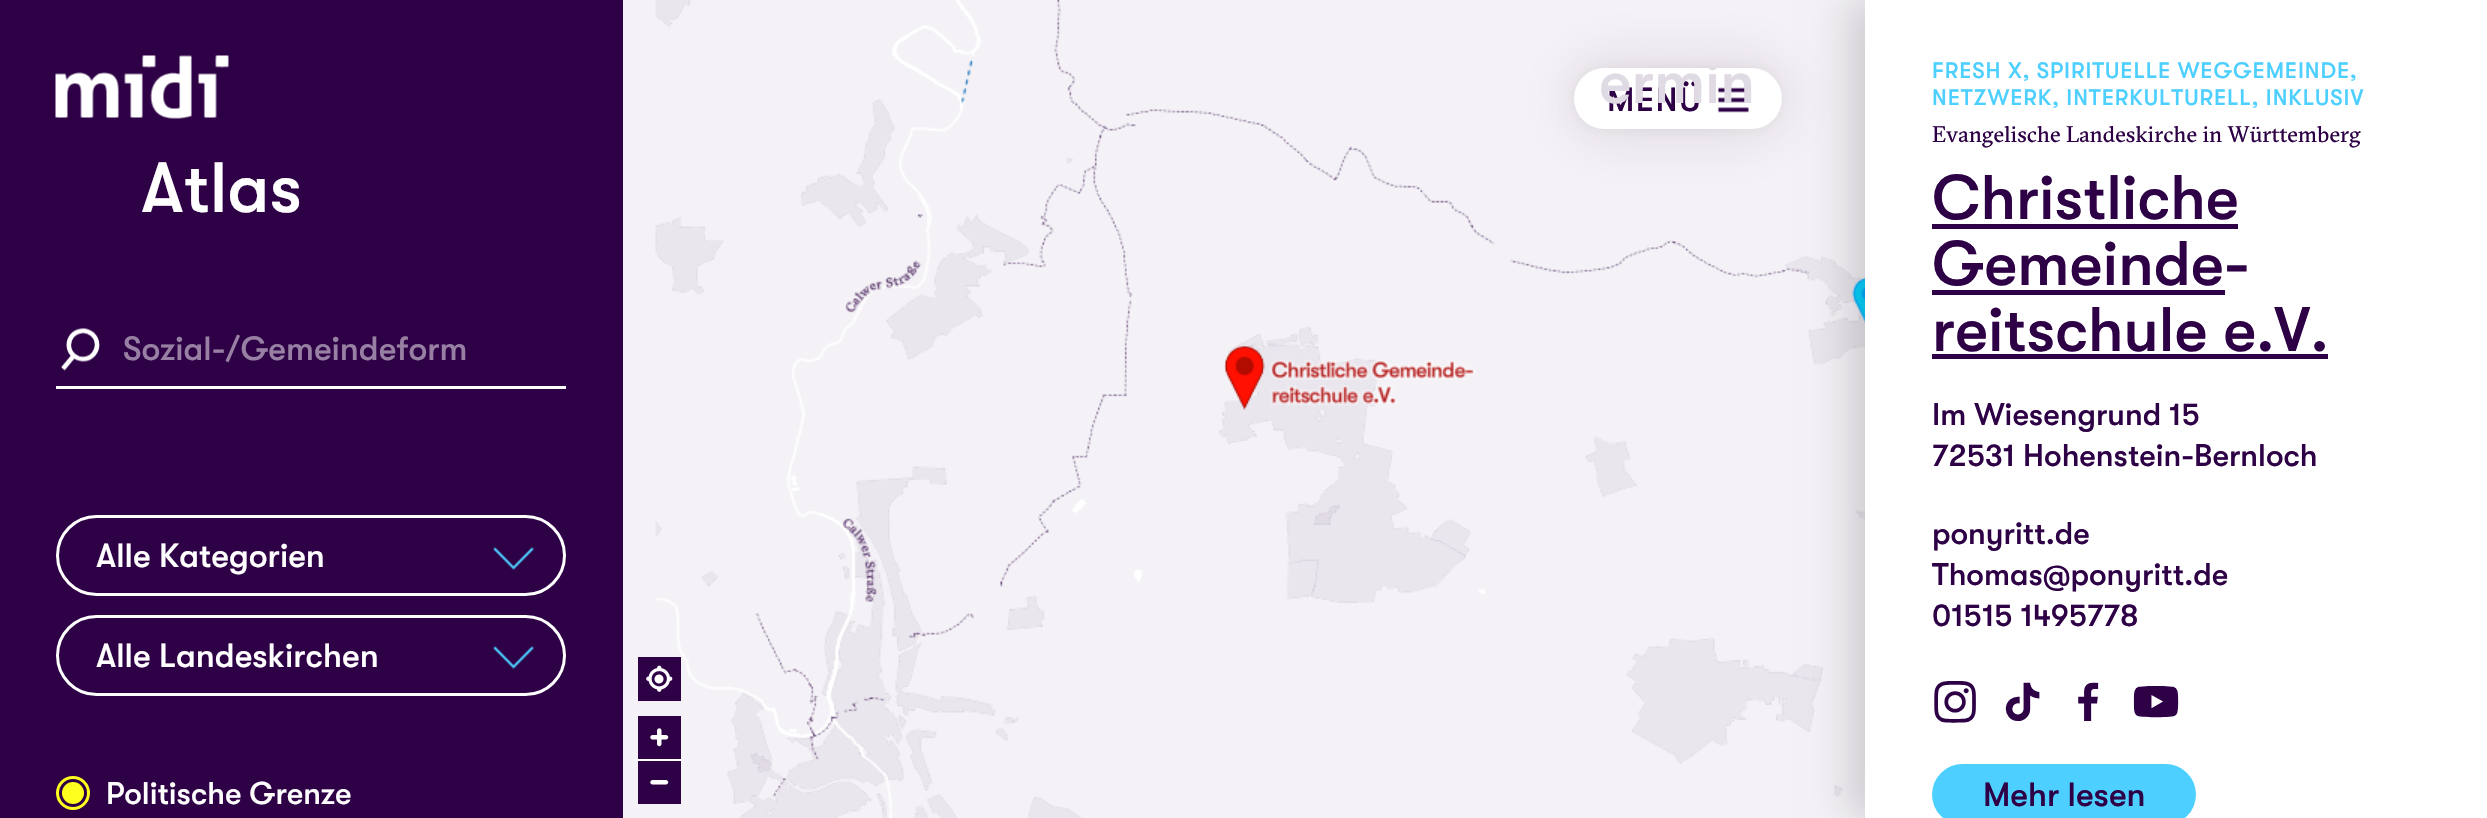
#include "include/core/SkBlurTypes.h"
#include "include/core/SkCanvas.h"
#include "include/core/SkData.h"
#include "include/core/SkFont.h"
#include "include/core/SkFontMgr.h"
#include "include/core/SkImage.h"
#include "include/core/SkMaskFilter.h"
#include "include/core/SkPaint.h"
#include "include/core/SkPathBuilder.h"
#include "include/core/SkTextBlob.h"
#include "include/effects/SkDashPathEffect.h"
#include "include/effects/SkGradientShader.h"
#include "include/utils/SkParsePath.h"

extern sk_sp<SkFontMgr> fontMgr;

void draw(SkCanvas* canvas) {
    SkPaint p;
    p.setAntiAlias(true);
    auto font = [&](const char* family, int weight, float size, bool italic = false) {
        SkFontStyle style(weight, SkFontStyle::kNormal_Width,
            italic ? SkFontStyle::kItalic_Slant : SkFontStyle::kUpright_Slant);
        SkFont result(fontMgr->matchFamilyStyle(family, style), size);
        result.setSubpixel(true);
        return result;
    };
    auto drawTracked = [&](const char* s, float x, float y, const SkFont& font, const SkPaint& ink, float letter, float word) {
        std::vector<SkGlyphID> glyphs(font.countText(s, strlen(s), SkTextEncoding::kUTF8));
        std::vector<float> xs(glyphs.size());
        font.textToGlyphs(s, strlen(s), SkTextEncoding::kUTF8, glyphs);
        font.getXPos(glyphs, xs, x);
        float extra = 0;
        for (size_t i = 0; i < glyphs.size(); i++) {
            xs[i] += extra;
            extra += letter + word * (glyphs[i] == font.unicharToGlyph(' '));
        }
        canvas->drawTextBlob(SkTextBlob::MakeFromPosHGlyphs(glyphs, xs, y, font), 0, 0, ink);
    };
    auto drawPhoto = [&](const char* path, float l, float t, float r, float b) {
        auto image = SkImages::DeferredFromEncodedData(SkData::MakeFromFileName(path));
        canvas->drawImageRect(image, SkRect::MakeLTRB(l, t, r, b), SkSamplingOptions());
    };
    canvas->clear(0xFFFFFFFF);
    p.setColor(0xFF2E0146);
    canvas->drawRect(SkRect::MakeLTRB(0, 0, 623, 818), p);
    drawPhoto("media/1.png", 55, 55, 229, 119);
    auto font1 = font("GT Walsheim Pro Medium", 500, 71);
    p.setColor(0xFFFFFFFF);
    canvas->drawString("Atlas", 141, 212, font1, p);
    drawPhoto("media/2.png", 61, 328, 100, 371);
    canvas->drawRect(SkRect::MakeLTRB(56, 386, 566, 389), p);
    auto font2 = font("GT Walsheim Pro Medium", 500, 33.5f);
    p.setColor(0xFF9780A3);
    canvas->drawString("Sozial-/Gemeindeform", 123, 360, font2, p);
    p.setStyle(SkPaint::kStroke_Style);
    p.setStrokeWidth(3);
    p.setColor(0xFFFFFFFF);
    canvas->drawRoundRect(SkRect::MakeLTRB(57.5f, 516.5f, 564.5f, 594.5f), 39, 39, p);
    p.setStyle(SkPaint::kFill_Style);
    canvas->drawString("Alle Kategorien", 96, 567, font2, p);
    drawPhoto("media/3.png", 493, 547, 534, 570);
    p.setStyle(SkPaint::kStroke_Style);
    canvas->drawRoundRect(SkRect::MakeLTRB(57.5f, 616.5f, 564.5f, 694.5f), 39, 39, p);
    p.setStyle(SkPaint::kFill_Style);
    canvas->drawString("Alle Landeskirchen", 96, 667, font2, p);
    drawPhoto("media/3.png", 493, 646, 534, 669);
    p.setStyle(SkPaint::kStroke_Style);
    p.setColor(0xFFFFFF1F);
    canvas->drawCircle(73, 793, 15.5f, p);
    auto font3 = font("GT Walsheim Pro Medium", 500, 31.3f);
    p.setStyle(SkPaint::kFill_Style);
    p.setColor(0xFFFFFFFF);
    canvas->drawString("Politische Grenze", 106, 804, font3, p);
    p.setColor(0xFFFFFF1F);
    canvas->drawCircle(73, 793, 11, p);
    drawPhoto("media/4.png", 623, 0, 1865, 818);
    p.setColor(0xFF2E0146);
    canvas->drawRect(SkRect::MakeLTRB(638, 657, 681, 701), p);
    drawPhoto("media/5.png", 646, 665, 673, 692);
    p.setColor(0xFFFFFFFF);
    canvas->drawRect(SkRect::MakeLTRB(638, 759, 681, 761), p);
    p.setColor(0xFF2E0146);
    canvas->drawRect(SkRect::MakeLTRB(638, 716, 681, 759), p);
    drawPhoto("media/6.png", 650, 728, 669, 747);
    canvas->drawRect(SkRect::MakeLTRB(638, 761, 681, 804), p);
    drawPhoto("media/7.png", 650, 780, 669, 785);
    p.setColor(0x29000000);
    p.setMaskFilter(SkMaskFilter::MakeBlur(kNormal_SkBlurStyle, 19.5f));
    canvas->drawRect(SkRect::MakeLTRB(1850, 0, 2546, 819), p);
    p.setMaskFilter(nullptr);
    p.setColor(0x264D1A4D);
    p.setMaskFilter(SkMaskFilter::MakeBlur(kNormal_SkBlurStyle, 33.5f));
    canvas->drawRoundRect(SkRect::MakeLTRB(1577, 71, 1778, 126), 27.5f, 27.5f, p);
    p.setMaskFilter(nullptr);
    p.setColor(0xFFFFFFFF);
    canvas->drawRect(SkRect::MakeLTRB(1865, 0, 2487, 818), p);
    auto font4 = font("GT Walsheim Pro Medium", 500, 22.4f);
    p.setColor(0xFF4DCFFF);
    drawTracked("FRESH X, SPIRITUELLE WEGGEMEINDE,", 1932, 78, font4, p, 0.9f, 0);
    drawTracked("NETZWERK, INTERKULTURELL, INKLUSIV", 1932, 105, font4, p, 0.9f, 0);
    auto font5 = font("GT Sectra", 400, 22.4f);
    p.setColor(0xFF2E0146);
    canvas->drawString("Evangelische Landeskirche in Württemberg", 1932, 142, font5, p);
    auto font6 = font("GT Walsheim Pro Medium", 500, 62.75f);
    canvas->drawString("Christliche", 1932, 219, font6, p);
    canvas->drawRect(SkRect::MakeLTRB(1932, 224, 2238, 229), p);
    canvas->drawString("Gemeinde-", 1932, 285, font6, p);
    canvas->drawRect(SkRect::MakeLTRB(1932, 290, 2225, 295), p);
    canvas->drawString("reitschule e.V.", 1932, 351, font6, p);
    canvas->drawRect(SkRect::MakeLTRB(1932, 354, 2328, 359), p);
    {
        const struct { const char* s; float x, y; } items[] = {
            {"Im Wiesengrund 15", 1932, 425},
            {"72531 Hohenstein-Bernloch", 1932, 466},
            {"ponyritt.de", 1932, 544},
            {"Thomas@ponyritt.de", 1932, 585},
            {"01515 1495778", 1932, 626},
        };
        for (auto [s, x, y] : items) {
            canvas->drawString(s, x, y, font3, p);
        }
    }
    drawPhoto("media/8.png", 1934, 681, 1976, 723);
    drawPhoto("media/9.png", 2005, 682, 2040, 721);
    drawPhoto("media/10.png", 2078, 682, 2099, 721);
    drawPhoto("media/11.png", 2133, 686, 2179, 718);
    p.setColor(0xFF4DCFFF);
    canvas->drawRoundRect(SkRect::MakeLTRB(1932, 764, 2196, 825), 30.5f, 30.5f, p);
    p.setColor(0xFF2E0146);
    canvas->drawString("Mehr lesen", 1983, 806, font2, p);
    p.setColor(0x1A000000);
    p.setMaskFilter(SkMaskFilter::MakeBlur(kNormal_SkBlurStyle, 8.5f));
    canvas->drawRoundRect(SkRect::MakeLTRB(1577, 71, 1778, 126), 27.5f, 27.5f, p);
    p.setMaskFilter(nullptr);
    p.setColor(0xFFFFFFFF);
    canvas->drawRoundRect(SkRect::MakeLTRB(1574, 68, 1782, 129), 30.5f, 30.5f, p);
    p.setColor(0xFF2E0146);
    drawTracked("MENÜ", 1607, 111, font2, p, 1.5f, 0);
    drawPhoto("media/12.png", 1717, 87, 1749, 113);
    canvas->save();
    canvas->clipRect(SkRect::MakeLTRB(1574, 68, 1782, 129));
    auto font7 = font("GT Walsheim Pro Medium", 500, 61.5f);
    p.setColor(0xFFE0DAE4);
    canvas->drawString("ermin", 1599, 103, font7, p);
    canvas->restore();
}
